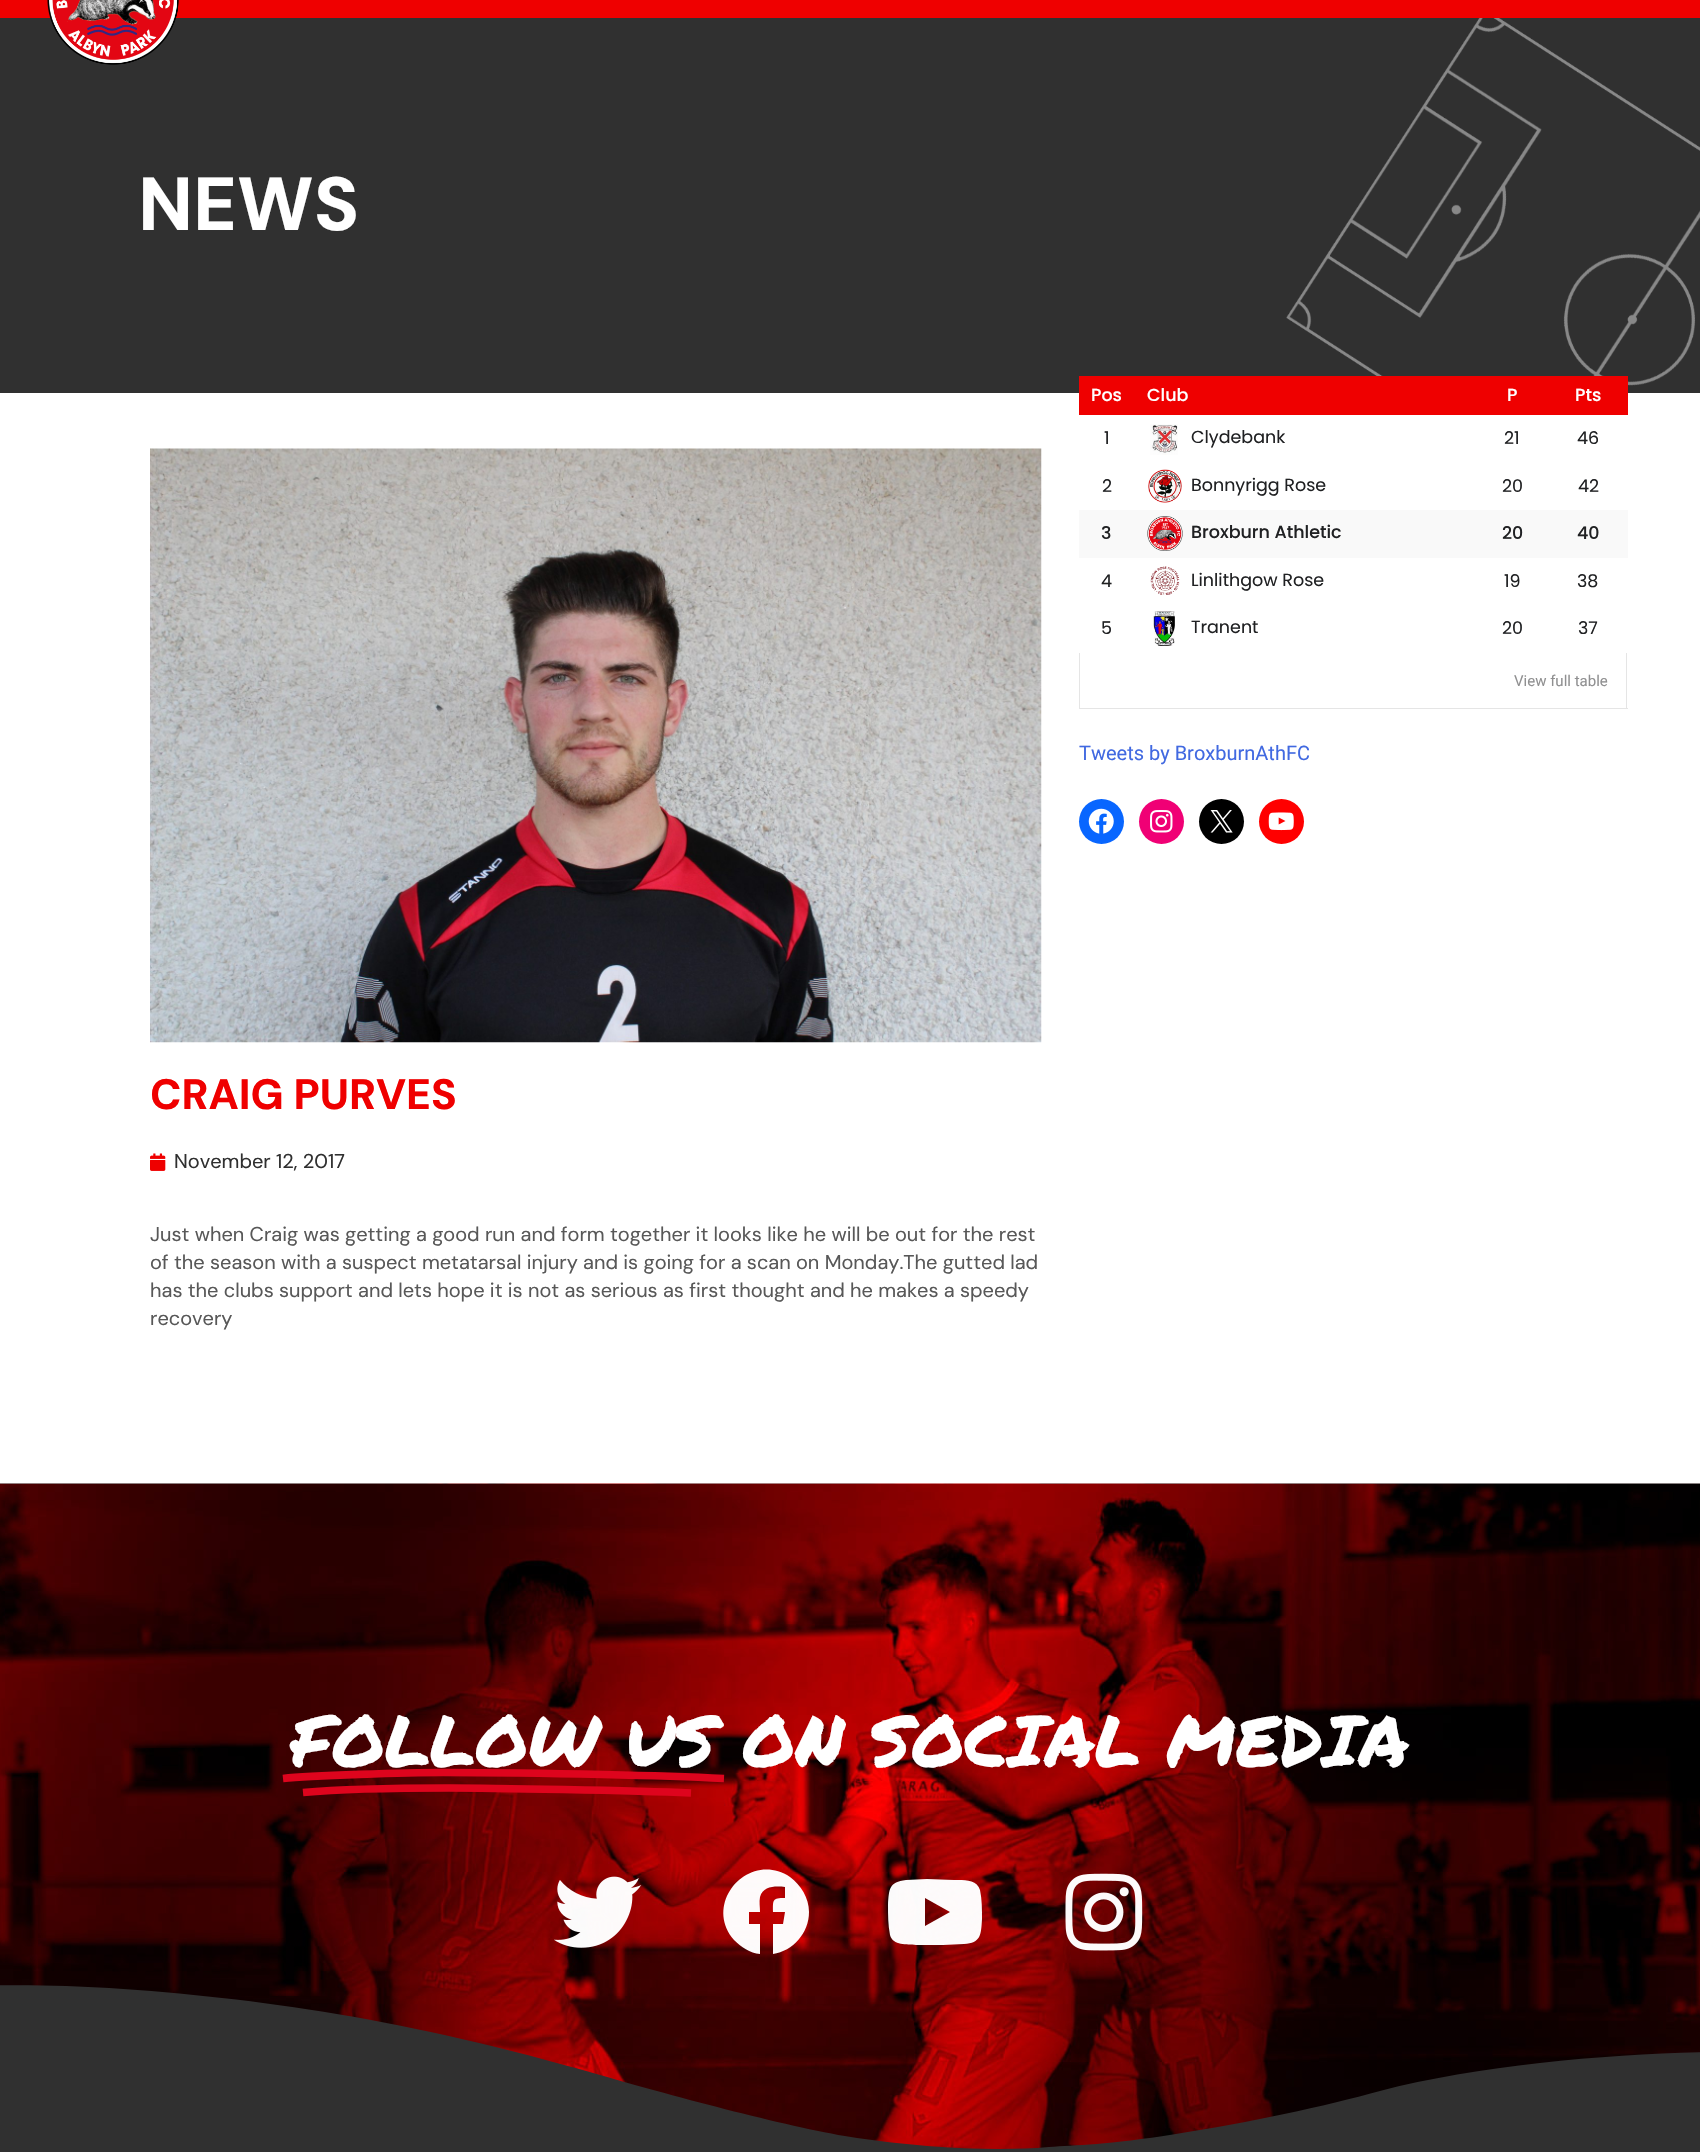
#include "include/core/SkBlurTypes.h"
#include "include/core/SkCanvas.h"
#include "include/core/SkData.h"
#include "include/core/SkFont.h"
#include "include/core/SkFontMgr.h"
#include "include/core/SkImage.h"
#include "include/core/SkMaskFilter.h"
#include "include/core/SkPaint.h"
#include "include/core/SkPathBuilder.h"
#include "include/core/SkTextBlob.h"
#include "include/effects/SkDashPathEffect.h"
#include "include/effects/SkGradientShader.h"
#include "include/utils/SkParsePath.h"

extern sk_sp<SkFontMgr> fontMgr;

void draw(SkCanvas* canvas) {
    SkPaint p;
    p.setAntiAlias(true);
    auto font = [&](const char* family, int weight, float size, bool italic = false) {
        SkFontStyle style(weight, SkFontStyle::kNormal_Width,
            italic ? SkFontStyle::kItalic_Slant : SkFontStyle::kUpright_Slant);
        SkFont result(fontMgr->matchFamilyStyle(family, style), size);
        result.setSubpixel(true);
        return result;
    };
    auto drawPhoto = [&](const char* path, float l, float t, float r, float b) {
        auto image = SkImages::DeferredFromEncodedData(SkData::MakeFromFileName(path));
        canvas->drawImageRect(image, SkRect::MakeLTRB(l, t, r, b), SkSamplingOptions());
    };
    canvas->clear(0xFFFFFFFF);
    p.setColor(0xFFEF0000);
    canvas->drawRect(SkRect::MakeLTRB(0, 0, 1700, 18), p);
    p.setColor(0xFF303030);
    canvas->drawRect(SkRect::MakeLTRB(0, 18, 1700, 393), p);
    drawPhoto("media/1.png", 47, 0, 179, 65);
    drawPhoto("media/2.png", 1286, 18, 1700, 386);
    auto font1 = font("DM Sans", 800, 75);
    p.setColor(0xFFFFFFFF);
    canvas->drawString("NEWS", 138, 230, font1, p);
    p.setColor(0xFFEF0000);
    canvas->drawRect(SkRect::MakeLTRB(1079, 376, 1628, 415), p);
    auto font2 = font("Poppins", 500, 17.5f);
    p.setColor(0xFFFFFFFF);
    {
        const struct { const char* s; float x, y; } items[] = {
            {"Pos", 1091, 401},
            {"Club", 1147, 401},
            {"P", 1507, 401},
            {"Pts", 1575, 401},
        };
        for (auto [s, x, y] : items) {
            canvas->drawString(s, x, y, font2, p);
        }
    }
    auto font3 = font("Poppins", 400, 17.5f);
    p.setColor(0xFF202123);
    canvas->drawString("1", 1104, 444, font3, p);
    drawPhoto("media/3.png", 1150, 424, 1178, 455);
    {
        const struct { const char* s; float x, y; } items[] = {
            {"Clydebank", 1191, 443},
            {"21", 1504, 444},
            {"46", 1577, 444},
            {"2", 1102, 492},
        };
        for (auto [s, x, y] : items) {
            canvas->drawString(s, x, y, font3, p);
        }
    }
    drawPhoto("media/4.png", 1148, 469, 1182, 503);
    {
        const struct { const char* s; float x, y; } items[] = {
            {"Bonnyrigg Rose", 1191, 491},
            {"20", 1502, 492},
            {"42", 1578, 492},
        };
        for (auto [s, x, y] : items) {
            canvas->drawString(s, x, y, font3, p);
        }
    }
    p.setColor(0xFFF9F9F9);
    canvas->drawRect(SkRect::MakeLTRB(1079, 510, 1628, 558), p);
    p.setColor(0xFF202123);
    canvas->drawString("3", 1101, 539, font2, p);
    drawPhoto("media/5.png", 1147, 516, 1183, 551);
    {
        const struct { const char* s; float x, y; } items[] = {
            {"Broxburn Athletic", 1191, 538},
            {"20", 1502, 539},
            {"40", 1577, 539},
        };
        for (auto [s, x, y] : items) {
            canvas->drawString(s, x, y, font2, p);
        }
    }
    canvas->drawString("4", 1101, 587, font3, p);
    drawPhoto("media/6.png", 1150, 566, 1180, 595);
    {
        const struct { const char* s; float x, y; } items[] = {
            {"Linlithgow Rose", 1191, 586},
            {"19", 1504, 587},
            {"38", 1577, 587},
            {"5", 1101, 634},
        };
        for (auto [s, x, y] : items) {
            canvas->drawString(s, x, y, font3, p);
        }
    }
    drawPhoto("media/7.png", 1153, 611, 1175, 646);
    {
        const struct { const char* s; float x, y; } items[] = {
            {"Tranent", 1191, 633},
            {"20", 1502, 634},
            {"37", 1578, 634},
        };
        for (auto [s, x, y] : items) {
            canvas->drawString(s, x, y, font3, p);
        }
    }
    {
        const struct { float l, t, r, b; SkColor color; } items[] = {
            {1626, 653, 1627, 709, 0xFFE5E5E5},
            {1079, 708, 1628, 709, 0xFFE5E5E5},
            {1079, 653, 1080, 709, 0xFFE5E5E5},
        };
        for (auto [l, t, r, b, color] : items) {
            p.setColor(color);
            canvas->drawRect(SkRect::MakeLTRB(l, t, r, b), p);
        }
    }
    auto font4 = font("Roboto", 400, 15);
    p.setColor(0xFF909091);
    canvas->drawString("View full table", 1514, 686, font4, p);
    auto font5 = font("Roboto", 400, 20);
    p.setColor(0xFF4169E1);
    canvas->drawString("Tweets by BroxburnAthFC", 1079, 760, font5, p);
    p.setColor(0xFF0866FF);
    canvas->drawCircle(1101.5f, 821.5f, 22.5f, p);
    drawPhoto("media/8.png", 1088, 808, 1114, 834);
    p.setColor(0xFFF00075);
    canvas->drawCircle(1161.5f, 821.5f, 22.5f, p);
    drawPhoto("media/9.png", 1150, 810, 1173, 833);
    p.setColor(0xFF000000);
    canvas->drawCircle(1221.5f, 821.5f, 22.5f, p);
    drawPhoto("media/10.png", 1210, 810, 1233, 833);
    p.setColor(0xFFFF0000);
    canvas->drawCircle(1281.5f, 821.5f, 22.5f, p);
    drawPhoto("media/11.png", 1268, 812, 1294, 831);
    drawPhoto("media/12.png", 150, 448, 1042, 1043);
    auto font6 = font("DM Sans", 800, 42.5f);
    p.setColor(0xFFEF0000);
    canvas->drawString("CRAIG PURVES", 150, 1109, font6, p);
    drawPhoto("media/13.png", 150, 1153, 166, 1171);
    auto font7 = font("DM Sans", 400, 20);
    p.setColor(0xFF303030);
    canvas->drawString("November 12, 2017", 174, 1168, font7, p);
    p.setColor(0xFF585858);
    {
        const struct { const char* s; float x, y; } items[] = {
            {"Just when Craig was getting a good run and form together it looks like he will be out for the rest", 150, 1241},
            {"of the season with a suspect metatarsal injury and is going for a scan on Monday.The gutted lad", 150, 1269},
            {"has the clubs support and lets hope it is not as serious as first thought and he makes a speedy", 150, 1297},
            {"recovery", 150, 1325},
        };
        for (auto [s, x, y] : items) {
            canvas->drawString(s, x, y, font7, p);
        }
    }
    drawPhoto("media/14.png", 0, 1483, 1700, 2149);
    auto font8 = font("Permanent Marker", 400, 71.25f);
    p.setColor(0xFFFFFFFF);
    canvas->drawString("FOLLOW US ON SOCIAL MEDIA", 291, 1767, font8, p);
    p.setStyle(SkPaint::kStroke_Style);
    p.setStrokeWidth(7.6f);
    p.setColor(0xFFDE041D);
    canvas->drawPath(SkPathBuilder().moveTo(283, 1778.5f).cubicTo(310.5f, 1775.5f, 407.5f, 1772.5f, 443, 1772.5f).cubicTo(548.5f, 1772.5f, 670, 1776, 724, 1778.5f).detach(), p);
    canvas->drawPath(SkPathBuilder().moveTo(303, 1792.5f).cubicTo(352.5f, 1788, 416.5f, 1788, 449, 1788).cubicTo(491, 1788, 632.5f, 1790.5f, 691, 1793).detach(), p);
    drawPhoto("media/15.png", 554, 1876, 642, 1948);
    p.setStyle(SkPaint::kFill_Style);
    p.setColor(0xFAFFFFFF);
    canvas->drawPath(SkPathBuilder().moveTo(809, 1912).cubicTo(809, 1933, 793, 1951, 773, 1954).lineTo(773, 1924).lineTo(783, 1924).lineTo(785, 1912).lineTo(773, 1912).cubicTo(773, 1900, 772, 1898, 785, 1898).lineTo(785, 1887).cubicTo(775, 1886, 763, 1886, 760, 1897).cubicTo(759, 1902, 760, 1907, 760, 1912).lineTo(749, 1912).lineTo(749, 1924).lineTo(760, 1924).lineTo(760, 1954).cubicTo(750, 1953, 741, 1947, 734, 1940).cubicTo(702, 1903, 749, 1850, 790, 1877).cubicTo(801, 1885, 809, 1898, 809, 1912).close().detach(), p);
    canvas->drawPath(SkPathBuilder().moveTo(980, 1890).cubicTo(982, 1899, 982, 1910, 982, 1919).cubicTo(981, 1935, 981, 1943, 964, 1944).lineTo(943, 1945).lineTo(916, 1945).cubicTo(907, 1944, 893, 1946, 890, 1935).cubicTo(888, 1925, 888, 1915, 888, 1905).cubicTo(889, 1889, 889, 1882, 906, 1880).lineTo(927, 1879).lineTo(954, 1880).cubicTo(963, 1880, 977, 1879, 980, 1890).close().moveTo(925, 1926).lineTo(950, 1912).lineTo(925, 1898).close().detach(), p);
    drawPhoto("media/16.png", 1065, 1873, 1143, 1951);
    p.setColor(0xFF303030);
    canvas->drawPath(SkPathBuilder().moveTo(1049, 2147).cubicTo(992, 2152, 918, 2147, 857, 2138).cubicTo(796, 2129, 676, 2097, 600, 2075).cubicTo(407, 2019, 259, 1998, 109, 1988).cubicTo(49, 1985, -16, 1982, -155, 1993).cubicTo(-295, 2003, -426, 2038, -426, 2038).lineTo(-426, 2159).lineTo(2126, 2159).lineTo(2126, 2106).cubicTo(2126, 2106, 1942, 2049, 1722, 2052).cubicTo(1622, 2053, 1485, 2064, 1380, 2091).cubicTo(1326, 2106, 1247, 2123, 1176, 2134).cubicTo(1107, 2145, 1076, 2145, 1049, 2147).close().detach(), p);
}
